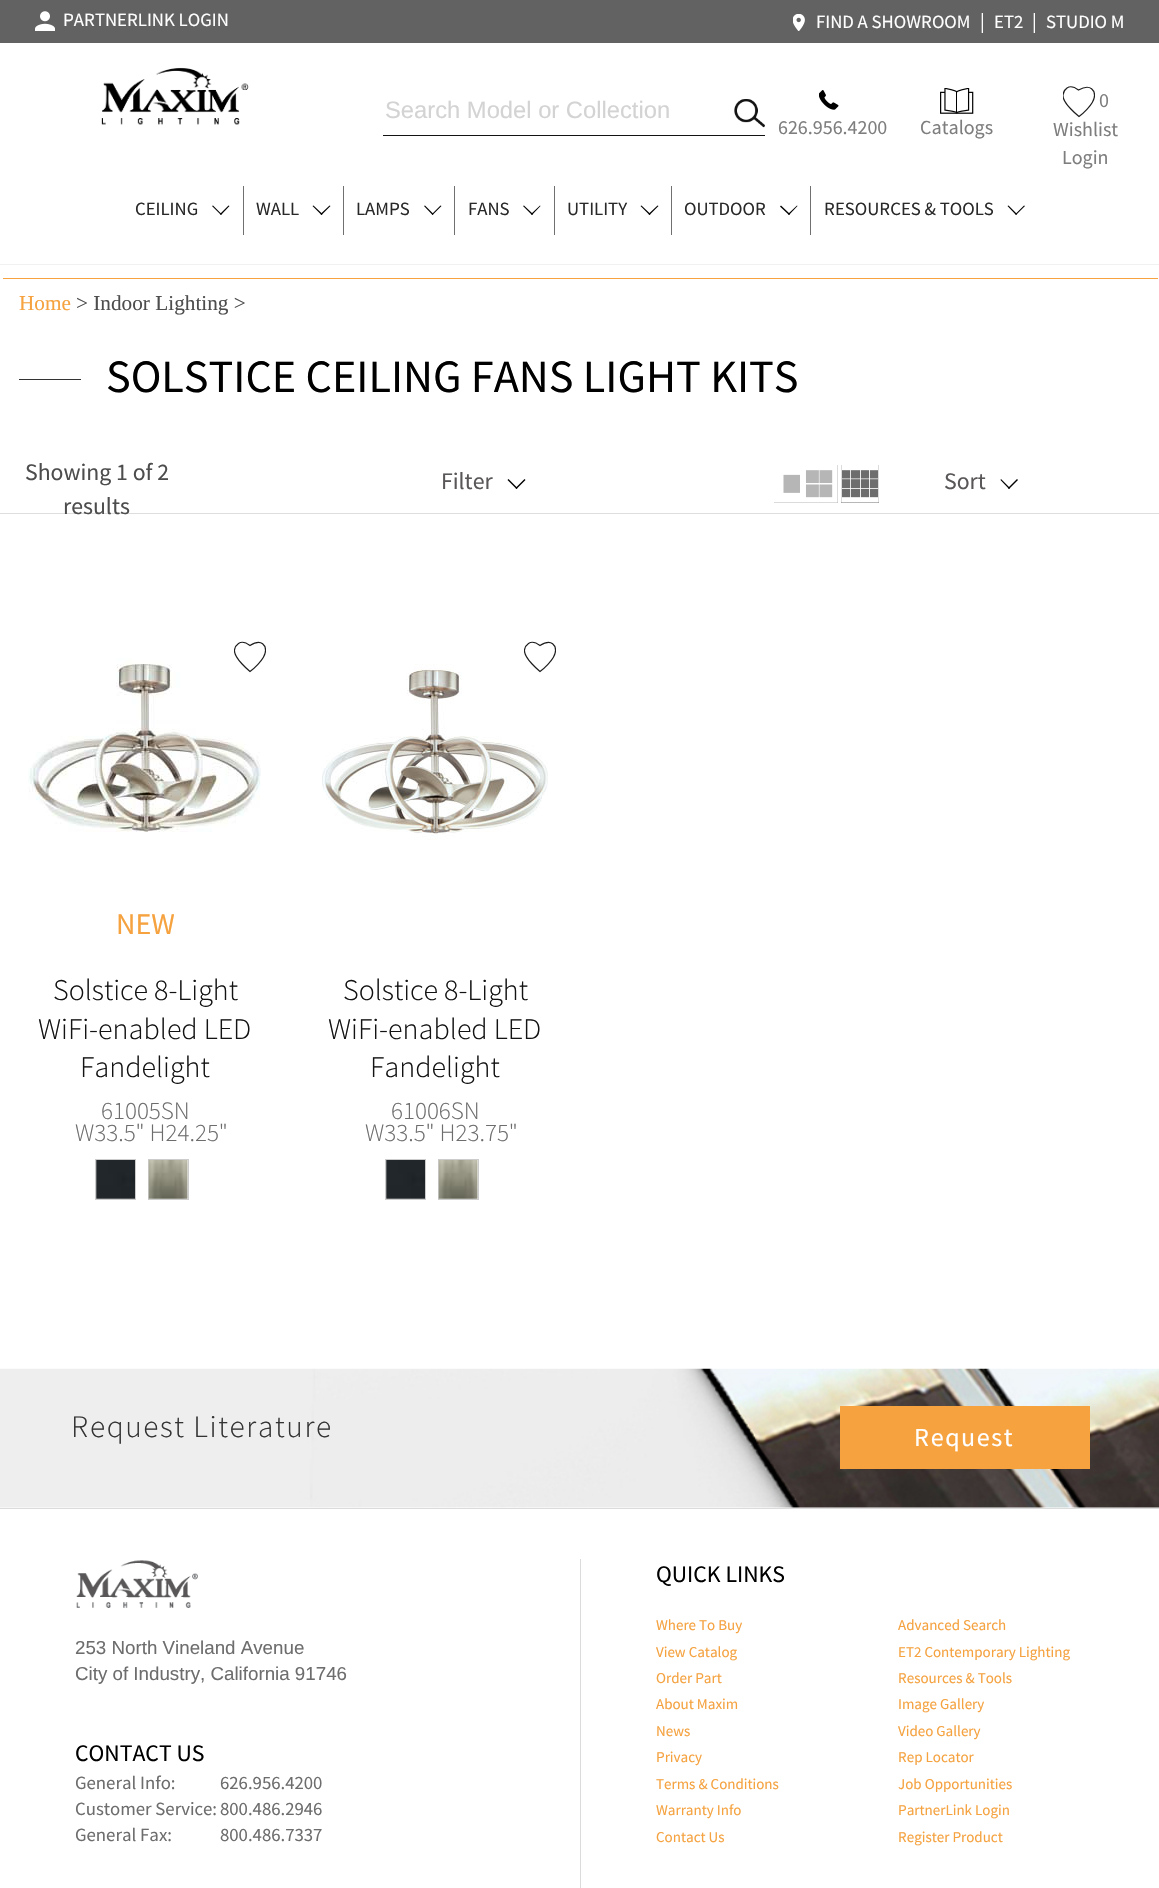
#include "include/core/SkBlurTypes.h"
#include "include/core/SkCanvas.h"
#include "include/core/SkData.h"
#include "include/core/SkFont.h"
#include "include/core/SkFontMgr.h"
#include "include/core/SkImage.h"
#include "include/core/SkMaskFilter.h"
#include "include/core/SkPaint.h"
#include "include/core/SkPathBuilder.h"
#include "include/core/SkTextBlob.h"
#include "include/effects/SkDashPathEffect.h"
#include "include/effects/SkGradientShader.h"
#include "include/utils/SkParsePath.h"

extern sk_sp<SkFontMgr> fontMgr;

void draw(SkCanvas* canvas) {
    SkPaint p;
    p.setAntiAlias(true);
    auto font = [&](const char* family, int weight, float size, bool italic = false) {
        SkFontStyle style(weight, SkFontStyle::kNormal_Width,
            italic ? SkFontStyle::kItalic_Slant : SkFontStyle::kUpright_Slant);
        SkFont result(fontMgr->matchFamilyStyle(family, style), size);
        result.setSubpixel(true);
        return result;
    };
    auto drawTracked = [&](const char* s, float x, float y, const SkFont& font, const SkPaint& ink, float letter, float word) {
        std::vector<SkGlyphID> glyphs(font.countText(s, strlen(s), SkTextEncoding::kUTF8));
        std::vector<float> xs(glyphs.size());
        font.textToGlyphs(s, strlen(s), SkTextEncoding::kUTF8, glyphs);
        font.getXPos(glyphs, xs, x);
        float extra = 0;
        for (size_t i = 0; i < glyphs.size(); i++) {
            xs[i] += extra;
            extra += letter + word * (glyphs[i] == font.unicharToGlyph(' '));
        }
        canvas->drawTextBlob(SkTextBlob::MakeFromPosHGlyphs(glyphs, xs, y, font), 0, 0, ink);
    };
    auto drawPhoto = [&](const char* path, float l, float t, float r, float b) {
        auto image = SkImages::DeferredFromEncodedData(SkData::MakeFromFileName(path));
        canvas->drawImageRect(image, SkRect::MakeLTRB(l, t, r, b), SkSamplingOptions());
    };
    canvas->clear(0xFFFFFFFF);
    p.setColor(0xFFF1F1F1);
    canvas->drawRect(SkRect::MakeLTRB(0, 264, 1159, 265), p);
    p.setColor(0xFF636262);
    canvas->drawRect(SkRect::MakeLTRB(0, 0, 1159, 43), p);
    drawPhoto("media/1.png", 35, 11, 55, 31);
    auto font1 = font("Source Sans Pro", 400, 18.75f);
    p.setColor(0xFFFFFFFF);
    canvas->drawString("PARTNERLINK LOGIN", 63, 26, font1, p);
    drawPhoto("media/2.png", 793, 14, 805, 31);
    canvas->drawString("FIND A SHOWROOM", 816, 28, font1, p);
    auto font2 = font("Source Sans Pro", 400, 20);
    canvas->drawString("|", 980, 28, font2, p);
    canvas->drawString("ET2", 994, 28, font1, p);
    canvas->drawString("|", 1032, 28, font2, p);
    canvas->drawString("STUDIO M", 1046, 28, font1, p);
    drawPhoto("media/3.png", 101, 67, 249, 125);
    p.setColor(0xFF131313);
    canvas->drawRect(SkRect::MakeLTRB(383, 135, 765, 136), p);
    auto font3 = font("Liberation Sans", 400, 23.75f);
    p.setColor(0xFFD3D3D3);
    canvas->drawString("Search Model or Collection", 385, 118, font3, p);
    drawPhoto("media/4.png", 734, 99, 765, 128);
    drawPhoto("media/5.png", 819, 90, 839, 110);
    p.setColor(0xFF7E7E7E);
    canvas->drawString("626.956.4200", 778, 134, font2, p);
    drawPhoto("media/6.png", 940, 88, 974, 114);
    canvas->drawString("Catalogs", 920, 134, font2, p);
    canvas->drawString("0", 1099, 107, font2, p);
    canvas->save();
    canvas->clipRect(SkRect::MakeLTRB(1063, 86, 1095, 118));
    p.setStyle(SkPaint::kStroke_Style);
    p.setStrokeWidth(1.2f);
    p.setStrokeCap(SkPaint::kRound_Cap);
    p.setColor(0xFF1D1D1D);
    canvas->drawPath(SkPathBuilder().moveTo(1079, 116.5f).cubicTo(1079, 116.5f, 1062, 103, 1063, 95).cubicTo(1063.5f, 91, 1068, 82, 1078.5f, 90).cubicTo(1092, 82.5f, 1094.5f, 92.5f, 1094.5f, 95).cubicTo(1095, 104.5f, 1079, 116.5f, 1079, 116.5f).close().detach(), p);
    canvas->restore();
    p.setStyle(SkPaint::kFill_Style);
    p.setColor(0xFF7E7E7E);
    canvas->drawString("Wishlist", 1053, 136, font2, p);
    canvas->drawString("Login", 1062, 164, font2, p);
    p.setColor(0xFF707070);
    canvas->drawRect(SkRect::MakeLTRB(243, 186, 244, 235), p);
    p.setColor(0xFF292929);
    canvas->drawString("CEILING", 135, 215, font1, p);
    p.setColor(0xFF000000);
    canvas->drawPath(SkPathBuilder().moveTo(228.5f, 205.5f).lineTo(229.5f, 206).lineTo(221, 215).lineTo(220, 214).close().detach(), p);
    canvas->drawPath(SkPathBuilder().moveTo(213, 205.5f).lineTo(221.5f, 214).lineTo(221, 215).lineTo(212, 206).close().detach(), p);
    p.setColor(0xFF707070);
    canvas->drawRect(SkRect::MakeLTRB(343, 186, 344, 235), p);
    p.setColor(0xFF292929);
    canvas->drawString("WALL", 256, 215, font1, p);
    p.setColor(0xFF000000);
    canvas->drawPath(SkPathBuilder().moveTo(329.5f, 205.5f).lineTo(330.5f, 206).lineTo(321.5f, 215).lineTo(320.5f, 214).close().detach(), p);
    canvas->drawPath(SkPathBuilder().moveTo(313.5f, 205.5f).lineTo(322.5f, 214).lineTo(321.5f, 215).lineTo(312.5f, 206).close().detach(), p);
    p.setColor(0xFF707070);
    canvas->drawRect(SkRect::MakeLTRB(454, 186, 455, 235), p);
    p.setColor(0xFF292929);
    canvas->drawString("LAMPS", 356, 215, font1, p);
    p.setColor(0xFF000000);
    canvas->drawPath(SkPathBuilder().moveTo(440.5f, 205.5f).lineTo(441.5f, 206).lineTo(432.5f, 215).lineTo(432, 214).close().detach(), p);
    canvas->drawPath(SkPathBuilder().moveTo(425, 205.5f).lineTo(433.5f, 214).lineTo(432.5f, 215).lineTo(424, 206).close().detach(), p);
    p.setColor(0xFF707070);
    canvas->drawRect(SkRect::MakeLTRB(554, 186, 555, 235), p);
    p.setColor(0xFF292929);
    canvas->drawString("FANS", 468, 215, font1, p);
    p.setColor(0xFF000000);
    canvas->drawPath(SkPathBuilder().moveTo(540, 205.5f).lineTo(540.5f, 206).lineTo(532, 215).lineTo(531, 214).close().detach(), p);
    canvas->drawPath(SkPathBuilder().moveTo(524, 205.5f).lineTo(533, 214).lineTo(532, 215).lineTo(523, 206).close().detach(), p);
    p.setColor(0xFF707070);
    canvas->drawRect(SkRect::MakeLTRB(671, 186, 672, 235), p);
    p.setColor(0xFF292929);
    canvas->drawString("UTILITY", 567, 215, font1, p);
    p.setColor(0xFF000000);
    canvas->drawPath(SkPathBuilder().moveTo(657.5f, 205.5f).lineTo(658.5f, 206).lineTo(649.5f, 215).lineTo(648.5f, 214).close().detach(), p);
    canvas->drawPath(SkPathBuilder().moveTo(641.5f, 205.5f).lineTo(650.5f, 214).lineTo(649.5f, 215).lineTo(640.5f, 206).close().detach(), p);
    p.setColor(0xFF707070);
    canvas->drawRect(SkRect::MakeLTRB(810, 186, 811, 235), p);
    p.setColor(0xFF292929);
    canvas->drawString("OUTDOOR", 684, 215, font1, p);
    p.setColor(0xFF000000);
    canvas->drawPath(SkPathBuilder().moveTo(797, 205.5f).lineTo(797.5f, 206).lineTo(789, 215).lineTo(788, 214).close().detach(), p);
    canvas->drawPath(SkPathBuilder().moveTo(781, 205.5f).lineTo(790, 214).lineTo(789, 215).lineTo(780, 206.5f).close().detach(), p);
    p.setColor(0xFF292929);
    canvas->drawString("RESOURCES & TOOLS", 824, 215, font1, p);
    p.setColor(0xFF000000);
    canvas->drawPath(SkPathBuilder().moveTo(1024, 205.5f).lineTo(1025, 206).lineTo(1016, 215).lineTo(1015.5f, 214).close().detach(), p);
    canvas->drawPath(SkPathBuilder().moveTo(1008.5f, 205.5f).lineTo(1017, 214).lineTo(1016, 215).lineTo(1007.5f, 206).close().detach(), p);
    p.setColor(0xFFF5A23F);
    canvas->drawRect(SkRect::MakeLTRB(3, 278, 1158, 279), p);
    auto font4 = font("Liberation Serif", 400, 21.25f);
    canvas->drawString("Home", 19, 310, font4, p);
    p.setColor(0xFF4E4D4D);
    canvas->drawString("> Indoor Lighting >", 76, 310, font4, p);
    p.setColor(0xFF333333);
    canvas->drawRect(SkRect::MakeLTRB(19, 379, 81, 380), p);
    auto font5 = font("Source Sans Pro", 400, 46.25f);
    p.setColor(0xFF000000);
    canvas->drawString("SOLSTICE CEILING FANS LIGHT KITS", 106, 392, font5, p);
    p.setColor(0xFFDFDEDE);
    canvas->drawRect(SkRect::MakeLTRB(0, 513, 1159, 514), p);
    auto font6 = font("Source Sans Pro", 400, 23.75f);
    p.setColor(0xFF4E4D4D);
    canvas->drawString("Showing 1 of 2", 25, 480, font6, p);
    canvas->drawString("results", 63, 514, font6, p);
    p.setColor(0xFF5A5758);
    canvas->drawString("Filter", 441, 489, font6, p);
    p.setColor(0xFF000000);
    canvas->drawPath(SkPathBuilder().moveTo(524.5f, 479).lineTo(525.5f, 480).lineTo(516.5f, 489).lineTo(515.5f, 488).close().detach(), p);
    canvas->drawPath(SkPathBuilder().moveTo(508.5f, 479).lineTo(517.5f, 488).lineTo(516.5f, 489).lineTo(507.5f, 480).close().detach(), p);
    p.setColor(0xFFB6B6B6);
    canvas->drawRect(SkRect::MakeLTRB(774, 474, 800, 503), p);
    drawPhoto("media/7.png", 774, 465, 800, 503);
    canvas->drawRect(SkRect::MakeLTRB(800, 465, 838, 503), p);
    drawPhoto("media/8.png", 800, 465, 838, 503);
    p.setColor(0xFF6D6D6D);
    canvas->drawRect(SkRect::MakeLTRB(841, 465, 879, 503), p);
    drawPhoto("media/9.png", 841, 465, 879, 503);
    p.setColor(0xFF5A5758);
    canvas->drawString("Sort", 944, 489, font6, p);
    p.setColor(0xFF000000);
    canvas->drawPath(SkPathBuilder().moveTo(1017, 479).lineTo(1018, 480).lineTo(1009, 489).lineTo(1008, 488).close().detach(), p);
    canvas->drawPath(SkPathBuilder().moveTo(1001, 479).lineTo(1010, 488).lineTo(1009, 489).lineTo(1000.5f, 480).close().detach(), p);
    drawPhoto("media/10.png", 28, 658, 261, 832);
    canvas->save();
    canvas->clipRect(SkRect::MakeLTRB(234, 641, 266, 673));
    p.setStyle(SkPaint::kStroke_Style);
    p.setColor(0xFF1D1D1D);
    canvas->drawPath(SkPathBuilder().moveTo(250, 671.5f).cubicTo(250, 671.5f, 233.5f, 658, 234.5f, 650).cubicTo(235, 646.5f, 239.5f, 637.5f, 250, 645.5f).cubicTo(263, 637.5f, 265.5f, 647.5f, 265.5f, 650).cubicTo(266, 659.5f, 250, 671.5f, 250, 671.5f).close().detach(), p);
    canvas->restore();
    auto font7 = font("Source Sans Pro", 400, 30);
    p.setStyle(SkPaint::kFill_Style);
    p.setColor(0xFFF5A23F);
    canvas->drawString("NEW", 116, 934, font7, p);
    auto font8 = font("Source Sans Pro", 300, 30);
    p.setColor(0xFF131313);
    {
        const struct { const char* s; float x, y; } items[] = {
            {"Solstice 8-Light", 53, 1000},
            {"WiFi-enabled LED", 38, 1039},
            {"Fandelight", 80, 1077},
        };
        for (auto [s, x, y] : items) {
            canvas->drawString(s, x, y, font8, p);
        }
    }
    auto font9 = font("Source Sans Pro", 300, 25);
    p.setColor(0xFF6D6D6D);
    canvas->drawString("61005SN", 101, 1119, font9, p);
    canvas->drawString("W33.5\" H24.25\"", 75, 1141, font9, p);
    p.setStyle(SkPaint::kStroke_Style);
    p.setStrokeWidth(1);
    p.setStrokeCap(SkPaint::kButt_Cap);
    p.setColor(0xFFCCCCCC);
    canvas->drawRect(SkRect::MakeLTRB(95.5f, 1159.5f, 135.5f, 1199.5f), p);
    drawPhoto("media/11.png", 96, 1160, 135, 1199);
    canvas->drawRect(SkRect::MakeLTRB(148.5f, 1159.5f, 188.5f, 1199.5f), p);
    drawPhoto("media/12.png", 148, 1160, 188, 1199);
    drawPhoto("media/13.png", 322, 664, 548, 840);
    canvas->save();
    canvas->clipRect(SkRect::MakeLTRB(524, 641, 556, 673));
    p.setStrokeWidth(1.2f);
    p.setStrokeCap(SkPaint::kRound_Cap);
    p.setColor(0xFF1D1D1D);
    canvas->drawPath(SkPathBuilder().moveTo(540, 671.5f).cubicTo(540, 671.5f, 523.5f, 658, 524.5f, 650).cubicTo(525, 646.5f, 529.5f, 637.5f, 540, 645.5f).cubicTo(553, 637.5f, 555.5f, 647.5f, 555.5f, 650).cubicTo(556, 659.5f, 540, 671.5f, 540, 671.5f).close().detach(), p);
    canvas->restore();
    p.setStyle(SkPaint::kFill_Style);
    p.setColor(0xFF131313);
    {
        const struct { const char* s; float x, y; } items[] = {
            {"Solstice 8-Light", 343, 1000},
            {"WiFi-enabled LED", 328, 1039},
            {"Fandelight", 370, 1077},
        };
        for (auto [s, x, y] : items) {
            canvas->drawString(s, x, y, font8, p);
        }
    }
    p.setColor(0xFF6D6D6D);
    canvas->drawString("61006SN", 391, 1119, font9, p);
    canvas->drawString("W33.5\" H23.75\"", 365, 1141, font9, p);
    p.setStyle(SkPaint::kStroke_Style);
    p.setStrokeWidth(1);
    p.setStrokeCap(SkPaint::kButt_Cap);
    p.setColor(0xFFCCCCCC);
    canvas->drawRect(SkRect::MakeLTRB(385.5f, 1159.5f, 425.5f, 1199.5f), p);
    drawPhoto("media/11.png", 386, 1160, 425, 1199);
    canvas->drawRect(SkRect::MakeLTRB(438.5f, 1159.5f, 478.5f, 1199.5f), p);
    drawPhoto("media/12.png", 438, 1160, 478, 1199);
    drawPhoto("media/14.png", 0, 1368, 1159, 1508);
    auto font10 = font("Source Sans Pro", 300, 31.25f);
    p.setStyle(SkPaint::kFill_Style);
    p.setColor(0xFF333333);
    drawTracked("Request Literature", 71, 1437, font10, p, 1.6f, 0);
    p.setColor(0xFFF5A23F);
    canvas->drawRect(SkRect::MakeLTRB(840, 1406, 1090, 1469), p);
    auto font11 = font("Source Sans Pro", 400, 26);
    p.setColor(0xFFFFFFFF);
    drawTracked("Request", 914, 1446, font11, p, 1.6f, 0);
    p.setColor(0xFFDBDBDB);
    canvas->drawRect(SkRect::MakeLTRB(0, 1508, 1159, 1509), p);
    drawPhoto("media/15.png", 76, 1560, 198, 1608);
    auto font12 = font("Liberation Sans", 400, 18.75f);
    p.setColor(0xFF6D6D6D);
    canvas->drawString("253 North Vineland Avenue", 75, 1654, font12, p);
    canvas->drawString("City of Industry, California 91746", 75, 1680, font12, p);
    p.setColor(0xFF000000);
    canvas->drawString("CONTACT US", 75, 1761, font6, p);
    p.setColor(0xFF6D6D6D);
    {
        const struct { const char* s; float x, y; } items[] = {
            {"General Info:", 75, 1789},
            {"626.956.4200", 220, 1789},
            {"Customer Service:", 75, 1815},
            {"800.486.2946", 220, 1815},
            {"General Fax:", 75, 1841},
            {"800.486.7337", 220, 1841},
        };
        for (auto [s, x, y] : items) {
            canvas->drawString(s, x, y, font1, p);
        }
    }
    p.setColor(0xFFDBDBDB);
    canvas->drawRect(SkRect::MakeLTRB(580, 1559, 581, 1888), p);
    p.setColor(0xFF000000);
    canvas->drawString("QUICK LINKS", 656, 1582, font6, p);
    auto font13 = font("Source Sans Pro", 400, 15);
    p.setColor(0xFFF5A23F);
    {
        const struct { const char* s; float x, y; } items[] = {
            {"Where To Buy", 656, 1630},
            {"Advanced Search", 898, 1630},
            {"View Catalog", 656, 1657},
            {"ET2 Contemporary Lighting", 898, 1657},
            {"Order Part", 656, 1683},
            {"Resources & Tools", 898, 1683},
            {"About Maxim", 656, 1709},
            {"Image Gallery", 898, 1709},
            {"News", 656, 1736},
            {"Video Gallery", 898, 1736},
            {"Privacy", 656, 1762},
            {"Rep Locator", 898, 1762},
            {"Terms & Conditions", 656, 1789},
            {"Job Opportunities", 898, 1789},
            {"Warranty Info", 656, 1815},
            {"PartnerLink Login", 898, 1815},
            {"Contact Us", 656, 1842},
            {"Register Product", 898, 1842},
        };
        for (auto [s, x, y] : items) {
            canvas->drawString(s, x, y, font13, p);
        }
    }
}
